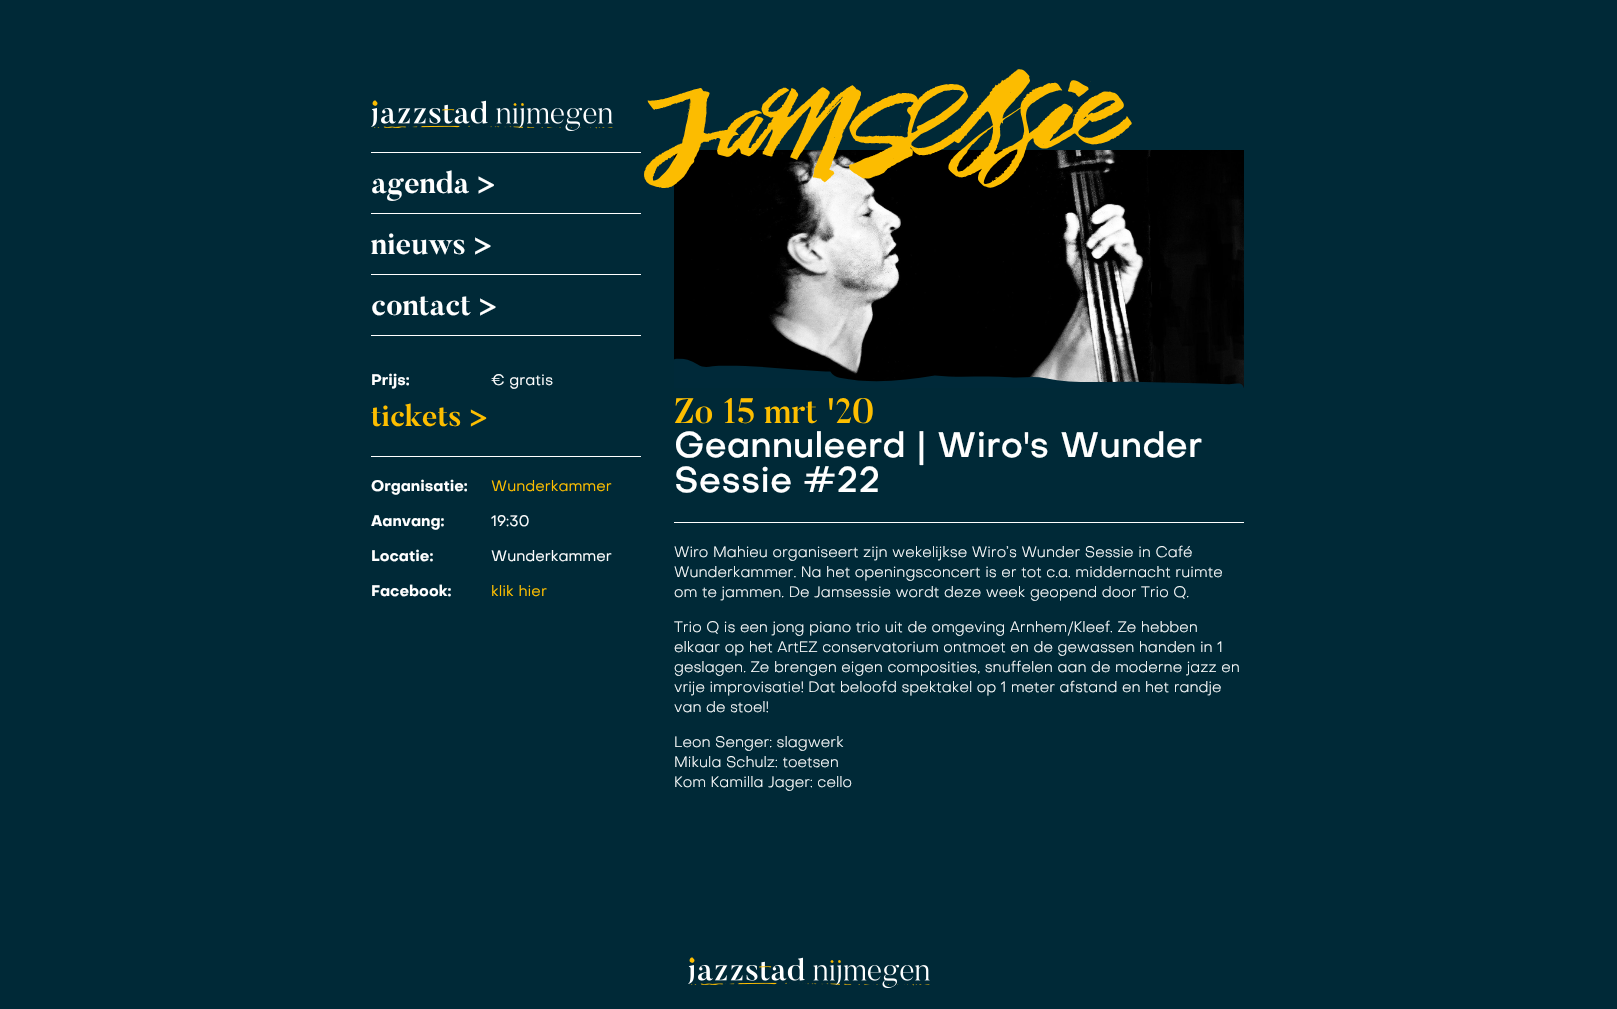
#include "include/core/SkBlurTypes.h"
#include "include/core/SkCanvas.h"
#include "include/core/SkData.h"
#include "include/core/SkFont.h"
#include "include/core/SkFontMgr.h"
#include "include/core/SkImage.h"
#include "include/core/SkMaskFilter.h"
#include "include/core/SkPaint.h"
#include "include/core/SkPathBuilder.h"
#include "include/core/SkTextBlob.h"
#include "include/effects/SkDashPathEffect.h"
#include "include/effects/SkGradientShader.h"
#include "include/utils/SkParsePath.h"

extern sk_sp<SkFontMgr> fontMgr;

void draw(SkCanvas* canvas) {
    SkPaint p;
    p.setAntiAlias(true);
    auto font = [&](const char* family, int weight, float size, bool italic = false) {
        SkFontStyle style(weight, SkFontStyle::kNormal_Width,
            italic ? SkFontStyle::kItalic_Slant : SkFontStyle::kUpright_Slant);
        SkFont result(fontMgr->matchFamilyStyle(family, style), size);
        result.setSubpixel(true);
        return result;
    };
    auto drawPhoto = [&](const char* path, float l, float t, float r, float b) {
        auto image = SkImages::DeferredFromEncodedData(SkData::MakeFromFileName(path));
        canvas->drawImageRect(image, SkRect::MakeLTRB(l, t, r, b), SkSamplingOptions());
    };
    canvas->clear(0xFF002937);
    p.setColor(0xFFFFFFFF);
    canvas->drawRect(SkRect::MakeLTRB(371, 152, 641, 153), p);
    drawPhoto("media/1.png", 371, 100, 613, 131);
    canvas->drawRect(SkRect::MakeLTRB(371, 213, 641, 214), p);
    auto font1 = font("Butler", 700, 30);
    canvas->drawString("agenda >", 371, 193, font1, p);
    canvas->drawRect(SkRect::MakeLTRB(371, 274, 641, 275), p);
    canvas->drawString("nieuws >", 371, 254, font1, p);
    canvas->drawRect(SkRect::MakeLTRB(371, 335, 641, 336), p);
    canvas->drawString("contact >", 371, 315, font1, p);
    auto font2 = font("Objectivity", 700, 15);
    canvas->drawString("Prijs:", 371, 385, font2, p);
    auto font3 = font("Objectivity", 400, 15);
    canvas->drawString("€ gratis", 491, 385, font3, p);
    p.setColor(0xFFFDBE00);
    canvas->drawString("tickets >", 371, 426, font1, p);
    p.setColor(0xFFFFFFFF);
    canvas->drawRect(SkRect::MakeLTRB(371, 456, 641, 457), p);
    canvas->drawString("Organisatie:", 371, 491, font2, p);
    p.setColor(0xFFFDBE00);
    canvas->drawString("Wunderkammer", 491, 491, font3, p);
    p.setColor(0xFFFFFFFF);
    canvas->drawString("Aanvang:", 371, 526, font2, p);
    canvas->drawString("19:30", 491, 526, font3, p);
    canvas->drawString("Locatie:", 371, 561, font2, p);
    canvas->drawString("Wunderkammer", 491, 561, font3, p);
    canvas->drawString("Facebook:", 371, 596, font2, p);
    p.setColor(0xFFFDBE00);
    canvas->drawString("klik hier", 491, 596, font3, p);
    drawPhoto("media/3.png", 674, 150, 1244, 388);
    drawPhoto("media/2.png", 644, 69, 1132, 188);
    drawPhoto("media/4.png", 674, 358, 1244, 388);
    auto font4 = font("Butler", 500, 35);
    canvas->drawString("Zo 15 mrt '20", 674, 423, font4, p);
    auto font5 = font("Objectivity", 500, 35);
    p.setColor(0xFFFFFFFF);
    canvas->drawString("Geannuleerd | Wiro's Wunder", 674, 457, font5, p);
    canvas->drawString("Sessie #22", 674, 492, font5, p);
    canvas->drawRect(SkRect::MakeLTRB(674, 522, 1244, 523), p);
    auto font6 = font("Objectivity", 300, 15);
    {
        const struct { const char* s; float x, y; } items[] = {
            {"Wiro Mahieu organiseert zijn wekelijkse Wiro’s Wunder Sessie in Café", 674, 557},
            {"Wunderkammer. Na het openingsconcert is er tot c.a. middernacht ruimte", 674, 577},
            {"om te jammen. De Jamsessie wordt deze week geopend door Trio Q.", 674, 597},
            {"Trio Q is een jong piano trio uit de omgeving Arnhem/Kleef. Ze hebben", 674, 632},
            {"elkaar op het ArtEZ conservatorium ontmoet en de gewassen handen in 1", 674, 652},
            {"geslagen. Ze brengen eigen composities, snuffelen aan de moderne jazz en", 674, 672},
            {"vrije improvisatie! Dat beloofd spektakel op 1 meter afstand en het randje", 674, 692},
            {"van de stoel!", 674, 712},
            {"Leon Senger: slagwerk", 674, 747},
            {"Mikula Schulz: toetsen", 674, 767},
            {"Kom Kamilla Jager: cello", 674, 787},
        };
        for (auto [s, x, y] : items) {
            canvas->drawString(s, x, y, font6, p);
        }
    }
    drawPhoto("media/1.png", 688, 957, 930, 988);
}
